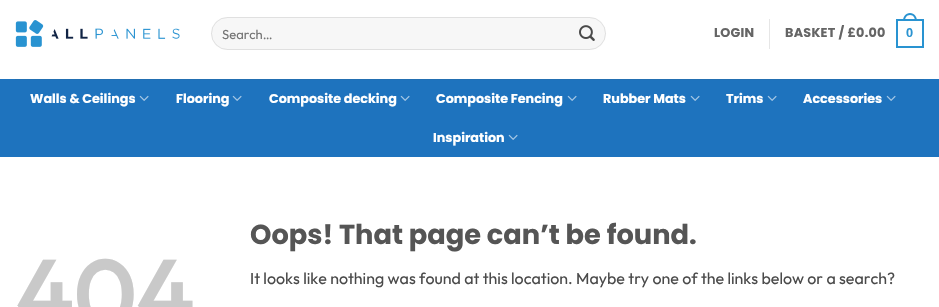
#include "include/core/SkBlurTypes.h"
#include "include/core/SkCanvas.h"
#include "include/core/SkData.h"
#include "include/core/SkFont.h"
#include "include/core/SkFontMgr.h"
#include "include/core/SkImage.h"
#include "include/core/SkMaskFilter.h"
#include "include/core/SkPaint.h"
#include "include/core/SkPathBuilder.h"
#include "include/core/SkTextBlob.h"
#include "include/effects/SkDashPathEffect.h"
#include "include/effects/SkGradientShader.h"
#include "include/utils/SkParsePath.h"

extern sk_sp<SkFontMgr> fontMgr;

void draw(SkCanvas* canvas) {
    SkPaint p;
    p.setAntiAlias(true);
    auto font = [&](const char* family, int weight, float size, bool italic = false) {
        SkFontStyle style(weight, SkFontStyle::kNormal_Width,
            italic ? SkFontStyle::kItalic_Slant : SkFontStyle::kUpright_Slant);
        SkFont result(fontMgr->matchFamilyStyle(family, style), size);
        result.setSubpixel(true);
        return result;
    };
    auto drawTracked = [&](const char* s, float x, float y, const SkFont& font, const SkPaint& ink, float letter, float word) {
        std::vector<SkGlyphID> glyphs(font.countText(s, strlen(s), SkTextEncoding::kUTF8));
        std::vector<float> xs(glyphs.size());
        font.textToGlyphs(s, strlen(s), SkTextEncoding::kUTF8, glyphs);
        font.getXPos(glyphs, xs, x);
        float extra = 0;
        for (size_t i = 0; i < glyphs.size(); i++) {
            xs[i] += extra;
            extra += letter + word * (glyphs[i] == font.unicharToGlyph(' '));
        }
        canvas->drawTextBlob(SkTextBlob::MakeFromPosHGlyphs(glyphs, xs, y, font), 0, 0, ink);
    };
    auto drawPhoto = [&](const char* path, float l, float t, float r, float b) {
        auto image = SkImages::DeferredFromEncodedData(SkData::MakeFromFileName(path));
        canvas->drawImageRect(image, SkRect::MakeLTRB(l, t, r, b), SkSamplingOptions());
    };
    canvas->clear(0xFFFFFFFF);
    drawPhoto("media/1.png", 15, 20, 180, 47);
    p.setColor(0xFFF7F7F7);
    canvas->drawRoundRect(SkRect::MakeLTRB(211, 17, 606, 50), 16.5f, 16.5f, p);
    p.setStyle(SkPaint::kStroke_Style);
    p.setStrokeWidth(1);
    p.setColor(0x17000000);
    canvas->drawRoundRect(SkRect::MakeLTRB(211.5f, 17.5f, 605.5f, 49.5f), 16, 16, p);
    auto font1 = font("Outfit", 100, 13);
    p.setStyle(SkPaint::kFill_Style);
    p.setColor(0xFF757575);
    canvas->drawString("Search…", 222, 39, font1, p);
    drawPhoto("media/2.png", 579, 25, 595, 41);
    auto font2 = font("Poppins", 700, 12.75f);
    p.setColor(0xFF656565);
    drawTracked("LOGIN", 714, 37, font2, p, 0.25f, 0);
    p.setColor(0xFFE6E6E6);
    canvas->drawRect(SkRect::MakeLTRB(769, 19, 770, 49), p);
    p.setColor(0xFF656565);
    drawTracked("BASKET / £0.00", 785, 37, font2, p, 0.25f, 0);
    p.setStyle(SkPaint::kStroke_Style);
    p.setStrokeWidth(2);
    p.setColor(0xFF2993D1);
    canvas->drawRect(SkRect::MakeLTRB(897, 20, 923, 47), p);
    p.setStyle(SkPaint::kFill_Style);
    canvas->drawPath(SkPathBuilder(SkPathFillType::kEvenOdd).moveTo(910, 13).cubicTo(914.5f, 13, 917, 17, 917, 21).lineTo(903, 21).cubicTo(903, 17, 905.5f, 13, 910, 13).close().moveTo(910, 15).cubicTo(913.5f, 15, 915, 18, 915, 21).lineTo(905, 21).cubicTo(905, 18, 906.5f, 15, 910, 15).close().detach(), p);
    auto font3 = font("Liberation Sans", 700, 12.75f);
    drawTracked("0", 906, 37, font3, p, 0.25f, 0);
    p.setColor(0xFF1E73BE);
    canvas->drawRect(SkRect::MakeLTRB(0, 79, 939, 157), p);
    p.setColor(0xFF226FB2);
    canvas->drawRect(SkRect::MakeLTRB(15, 79, 924, 80), p);
    p.setColor(0xFFFFFFFF);
    canvas->drawString("Walls & Ceilings", 30, 103, font2, p);
    drawPhoto("media/3.png", 139, 95, 149, 101);
    canvas->drawString("Flooring", 176, 103, font2, p);
    drawPhoto("media/3.png", 232, 95, 242, 101);
    canvas->drawString("Composite decking", 269, 103, font2, p);
    drawPhoto("media/3.png", 400, 95, 410, 101);
    canvas->drawString("Composite Fencing", 436, 103, font2, p);
    drawPhoto("media/3.png", 567, 95, 577, 101);
    canvas->drawString("Rubber Mats", 603, 103, font2, p);
    drawPhoto("media/3.png", 690, 95, 700, 101);
    canvas->drawString("Trims", 726, 103, font2, p);
    drawPhoto("media/3.png", 767, 95, 777, 101);
    canvas->drawString("Accessories", 803, 103, font2, p);
    drawPhoto("media/3.png", 886, 95, 896, 101);
    canvas->drawString("Inspiration", 433, 142, font2, p);
    drawPhoto("media/3.png", 508, 134, 518, 140);
    auto font4 = font("Outfit", 700, 96);
    p.setColor(0xFFC9C9C9);
    canvas->drawString("404", 15, 329, font4, p);
    auto font5 = font("Poppins", 700, 27.25f);
    p.setColor(0xFF555555);
    canvas->drawString("Oops! That page can’t be found.", 250, 244, font5, p);
    auto font6 = font("Outfit", 100, 16);
    p.setColor(0xFF4A4A4A);
    canvas->drawString("It looks like nothing was found at this location. Maybe try one of the links below or a search?", 250, 284, font6, p);
}
